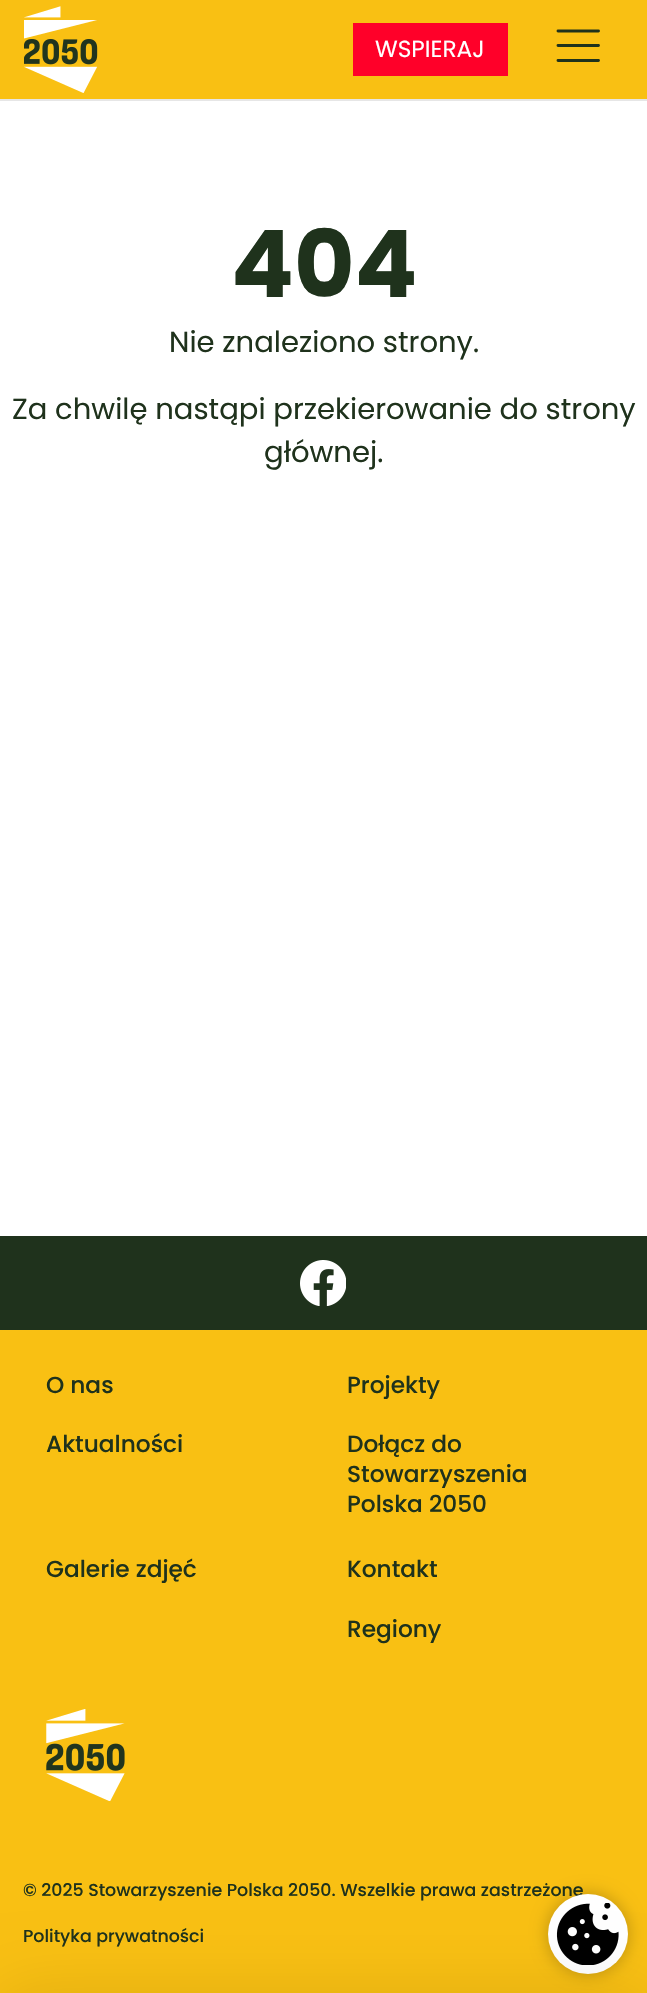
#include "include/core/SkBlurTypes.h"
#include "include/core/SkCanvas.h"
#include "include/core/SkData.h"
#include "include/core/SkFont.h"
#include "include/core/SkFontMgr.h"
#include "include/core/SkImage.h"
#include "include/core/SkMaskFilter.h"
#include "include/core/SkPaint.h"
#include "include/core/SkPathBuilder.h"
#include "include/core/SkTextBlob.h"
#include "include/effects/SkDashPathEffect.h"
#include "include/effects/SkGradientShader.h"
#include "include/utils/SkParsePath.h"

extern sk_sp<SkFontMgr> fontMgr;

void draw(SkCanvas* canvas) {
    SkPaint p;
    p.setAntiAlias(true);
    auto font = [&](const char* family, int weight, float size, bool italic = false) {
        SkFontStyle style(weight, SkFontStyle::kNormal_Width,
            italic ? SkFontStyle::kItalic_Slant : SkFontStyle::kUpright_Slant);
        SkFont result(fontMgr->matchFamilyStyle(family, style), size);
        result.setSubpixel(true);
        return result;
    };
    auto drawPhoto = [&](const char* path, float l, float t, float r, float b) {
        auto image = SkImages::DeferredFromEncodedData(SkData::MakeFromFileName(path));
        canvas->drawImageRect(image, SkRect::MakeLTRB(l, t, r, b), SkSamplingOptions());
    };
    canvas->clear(0xFFFFFFFF);
    p.setStyle(SkPaint::kStroke_Style);
    p.setStrokeWidth(3);
    p.setColor(0xFFE6E6E6);
    canvas->drawRect(SkRect::MakeLTRB(-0.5f, -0.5f, 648.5f, 99.5f), p);
    p.setStyle(SkPaint::kFill_Style);
    p.setColor(0xFFF9C013);
    canvas->drawRect(SkRect::MakeLTRB(0, 0, 647, 99), p);
    drawPhoto("media/1.png", 24, 6, 98, 93);
    p.setColor(0xFFFF0029);
    canvas->drawRect(SkRect::MakeLTRB(353, 23, 508, 76), p);
    auto font1 = font("Poppins", 400, 23.25f);
    p.setColor(0xFFFFFFFF);
    canvas->drawString("WSPIERAJ", 375, 57, font1, p);
    p.setStyle(SkPaint::kStroke_Style);
    p.setStrokeWidth(2.9f);
    p.setStrokeCap(SkPaint::kRound_Cap);
    p.setStrokeJoin(SkPaint::kRound_Join);
    p.setColor(0xFF1F321C);
    canvas->drawPath(SkPathBuilder().moveTo(558, 31).lineTo(598.5f, 31).moveTo(558, 45.5f).lineTo(598.5f, 45.5f).moveTo(558, 60.5f).lineTo(598.5f, 60.5f).detach(), p);
    auto font2 = font("Poppins", 700, 93);
    p.setStyle(SkPaint::kFill_Style);
    canvas->drawString("404", 231, 297, font2, p);
    auto font3 = font("Poppins", 400, 29.05f);
    {
        const struct { const char* s; float x, y; } items[] = {
            {"Nie znaleziono strony.", 169, 352},
            {"Za chwilę nastąpi przekierowanie do strony", 12, 419},
            {"głównej.", 264, 462},
        };
        for (auto [s, x, y] : items) {
            canvas->drawString(s, x, y, font3, p);
        }
    }
    canvas->drawRect(SkRect::MakeLTRB(0, 1236, 647, 1330), p);
    drawPhoto("media/2.png", 300, 1260, 346, 1306);
    p.setColor(0xFFF9C013);
    canvas->drawRect(SkRect::MakeLTRB(0, 1330, 647, 1993), p);
    auto font4 = font("Poppins", 500, 23.25f);
    p.setColor(0xFF1F321C);
    {
        const struct { const char* s; float x, y; } items[] = {
            {"O nas", 46, 1393},
            {"Aktualności", 46, 1452},
            {"Projekty", 347, 1393},
            {"Dołącz do", 347, 1452},
            {"Stowarzyszenia", 347, 1482},
            {"Polska 2050", 347, 1512},
            {"Galerie zdjęć", 46, 1577},
            {"Kontakt", 347, 1577},
            {"Regiony", 347, 1637},
        };
        for (auto [s, x, y] : items) {
            canvas->drawString(s, x, y, font4, p);
        }
    }
    drawPhoto("media/3.png", 46, 1709, 125, 1801);
    auto font5 = font("Poppins", 500, 17.4f);
    canvas->drawString("© 2025 Stowarzyszenie Polska 2050. Wszelkie prawa zastrzeżone", 23, 1896, font5, p);
    canvas->drawString("Polityka prywatności", 23, 1942, font5, p);
    p.setColor(0x40000000);
    p.setMaskFilter(SkMaskFilter::MakeBlur(kNormal_SkBlurStyle, 8.5f));
    canvas->drawRoundRect(SkRect::MakeLTRB(548, 1894, 628, 1974), 40, 40, p);
    p.setMaskFilter(nullptr);
    p.setColor(0xFFFFFFFF);
    canvas->drawCircle(588, 1934, 40, p);
    drawPhoto("media/4.png", 556, 1903, 619, 1965);
    p.setColor(0x1A000000);
    p.setMaskFilter(SkMaskFilter::MakeBlur(kNormal_SkBlurStyle, 35));
    canvas->drawRect(SkRect::MakeLTRB(0, 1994, 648, 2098), p);
    p.setMaskFilter(nullptr);
}
